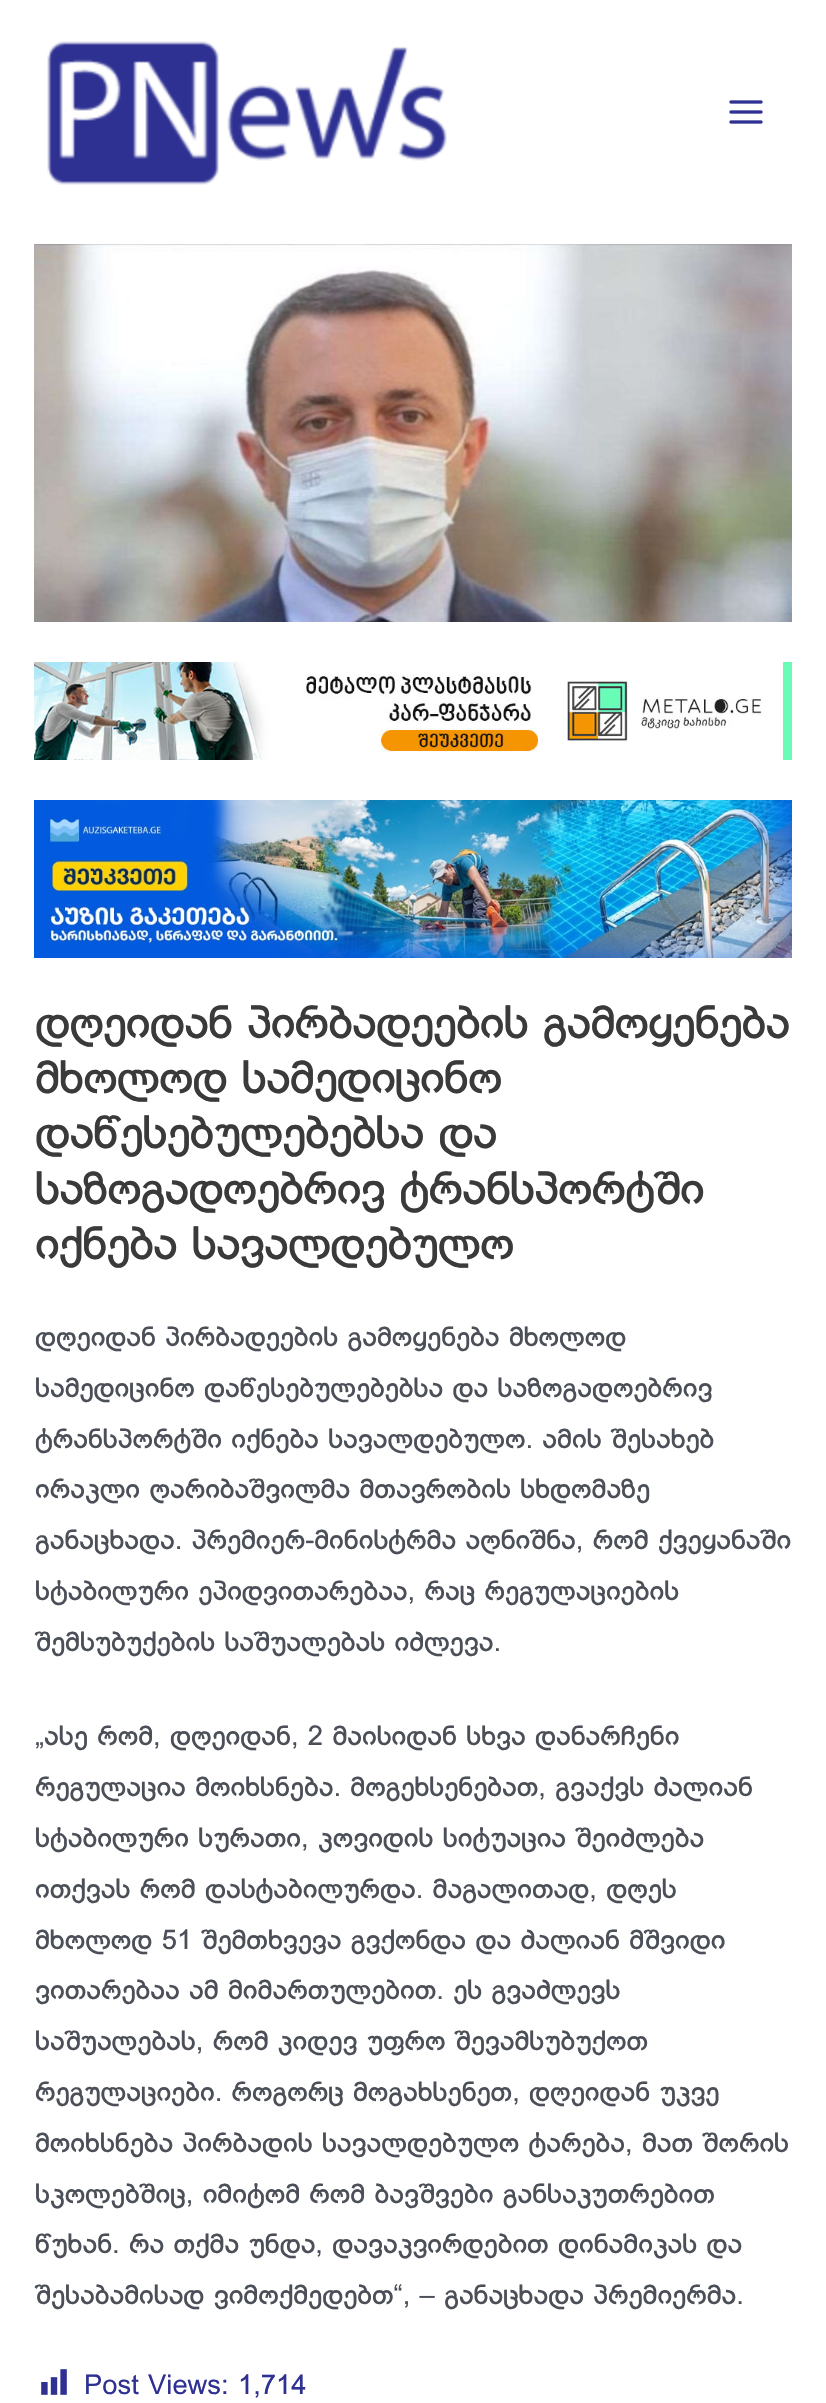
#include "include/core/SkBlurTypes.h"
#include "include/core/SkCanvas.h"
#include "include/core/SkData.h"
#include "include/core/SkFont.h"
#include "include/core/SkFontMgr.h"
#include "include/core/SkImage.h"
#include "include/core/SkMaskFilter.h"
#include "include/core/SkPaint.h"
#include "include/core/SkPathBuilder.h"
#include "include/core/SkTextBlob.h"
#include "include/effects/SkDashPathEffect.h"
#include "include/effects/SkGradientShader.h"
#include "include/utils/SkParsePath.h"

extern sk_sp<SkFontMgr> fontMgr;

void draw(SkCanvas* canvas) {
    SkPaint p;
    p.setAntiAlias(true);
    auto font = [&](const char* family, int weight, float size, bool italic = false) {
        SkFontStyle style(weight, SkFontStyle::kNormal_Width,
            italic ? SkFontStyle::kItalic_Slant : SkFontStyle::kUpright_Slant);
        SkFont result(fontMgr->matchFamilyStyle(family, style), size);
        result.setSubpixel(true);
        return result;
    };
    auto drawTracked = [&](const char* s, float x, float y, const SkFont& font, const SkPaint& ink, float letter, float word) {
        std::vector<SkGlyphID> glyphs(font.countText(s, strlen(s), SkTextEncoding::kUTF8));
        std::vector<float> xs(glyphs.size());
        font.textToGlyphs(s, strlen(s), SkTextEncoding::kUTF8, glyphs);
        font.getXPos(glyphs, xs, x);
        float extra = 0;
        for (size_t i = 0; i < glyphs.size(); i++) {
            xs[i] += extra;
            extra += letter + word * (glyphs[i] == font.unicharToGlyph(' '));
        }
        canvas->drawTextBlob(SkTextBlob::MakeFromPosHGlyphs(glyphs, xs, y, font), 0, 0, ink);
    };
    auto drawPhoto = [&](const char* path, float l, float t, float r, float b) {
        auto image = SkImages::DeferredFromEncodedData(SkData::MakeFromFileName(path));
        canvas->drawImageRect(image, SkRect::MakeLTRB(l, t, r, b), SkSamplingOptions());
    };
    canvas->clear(0xFFFFFFFF);
    drawPhoto("media/1.png", 47, 41, 447, 185);
    drawPhoto("media/2.png", 729, 100, 763, 124);
    drawPhoto("media/3.png", 34, 244, 792, 622);
    drawPhoto("media/4.png", 34, 662, 792, 760);
    drawPhoto("media/5.png", 34, 800, 792, 958);
    auto font1 = font("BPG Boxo", 400, 46);
    p.setColor(0xFF3A3A3A);
    {
        const struct { const char* s; float x, y; } items[] = {
            {"დღეიდან პირბადეების გამოყენება", 35, 1038},
            {"მხოლოდ სამედიცინო", 35, 1093},
            {"დაწესებულებებსა და", 35, 1148},
            {"საზოგადოებრივ ტრანსპორტში", 35, 1204},
            {"იქნება სავალდებულო", 35, 1259},
        };
        for (auto [s, x, y] : items) {
            drawTracked(s, x, y, font1, p, -0.9f, 0);
        }
    }
    auto font2 = font("BPG Boxo", 400, 27.35f);
    p.setColor(0xFF4B4F58);
    {
        const struct { const char* s; float x, y; } items[] = {
            {"დღეიდან პირბადეების გამოყენება მხოლოდ", 35, 1346},
            {"სამედიცინო დაწესებულებებსა და საზოგადოებრივ", 35, 1397},
            {"ტრანსპორტში იქნება სავალდებულო. ამის შესახებ", 35, 1448},
            {"ირაკლი ღარიბაშვილმა მთავრობის სხდომაზე", 35, 1498},
            {"განაცხადა. პრემიერ-მინისტრმა აღნიშნა, რომ ქვეყანაში", 35, 1549},
            {"სტაბილური ეპიდვითარებაა, რაც რეგულაციების", 35, 1600},
            {"შემსუბუქების საშუალებას იძლევა.", 35, 1651},
            {"„ასე რომ, დღეიდან, 2 მაისიდან სხვა დანარჩენი", 35, 1745},
            {"რეგულაცია მოიხსნება. მოგეხსენებათ, გვაქვს ძალიან", 35, 1796},
            {"სტაბილური სურათი, კოვიდის სიტუაცია შეიძლება", 35, 1847},
            {"ითქვას რომ დასტაბილურდა. მაგალითად, დღეს", 35, 1898},
            {"მხოლოდ 51 შემთხვევა გვქონდა და ძალიან მშვიდი", 35, 1949},
            {"ვითარებაა ამ მიმართულებით. ეს გვაძლევს", 35, 1999},
            {"საშუალებას, რომ კიდევ უფრო შევამსუბუქოთ", 35, 2050},
            {"რეგულაციები. როგორც მოგახსენეთ, დღეიდან უკვე", 35, 2101},
            {"მოიხსნება პირბადის სავალდებულო ტარება, მათ შორის", 35, 2152},
            {"სკოლებშიც, იმიტომ რომ ბავშვები განსაკუთრებით", 35, 2203},
            {"წუხან. რა თქმა უნდა, დავაკვირდებით დინამიკას და", 35, 2253},
            {"შესაბამისად ვიმოქმედებთ“, – განაცხადა პრემიერმა.", 35, 2304},
        };
        for (auto [s, x, y] : items) {
            canvas->drawString(s, x, y, font2, p);
        }
    }
    drawPhoto("media/6.png", 41, 2369, 67, 2395);
    p.setColor(0xFF2E3192);
    canvas->drawString("Post Views: 1,714", 84, 2394, font2, p);
}
